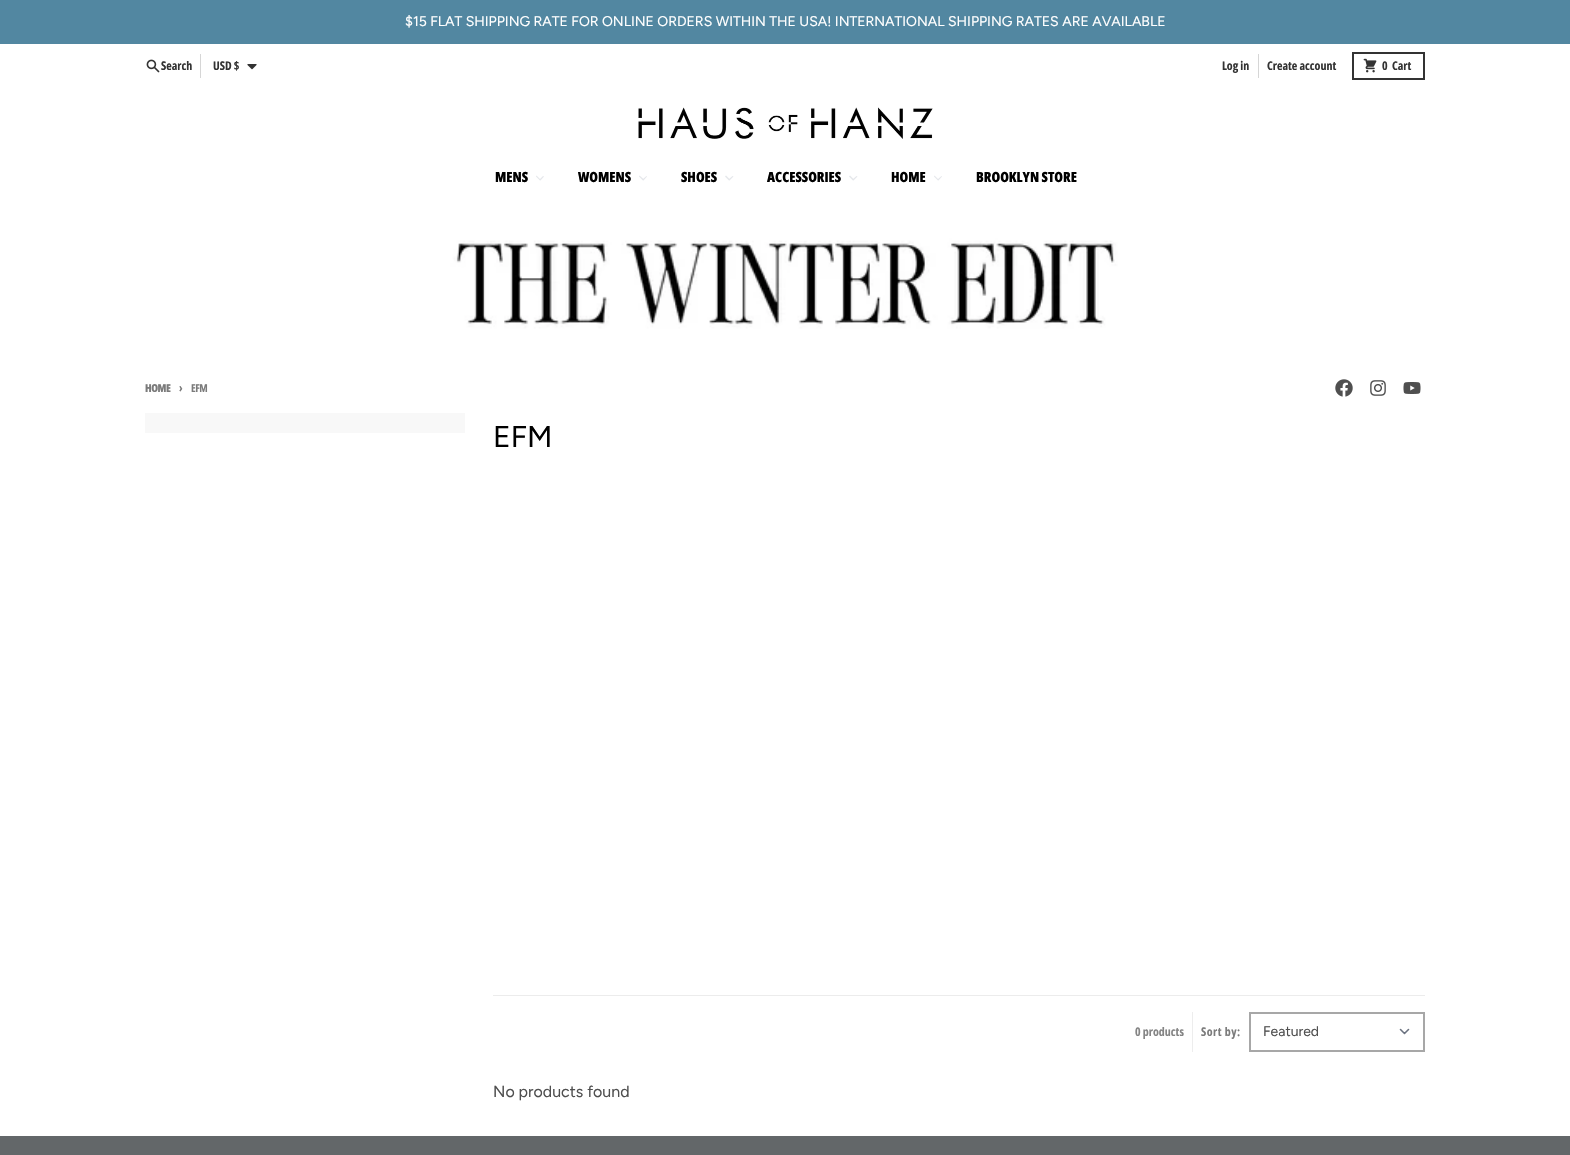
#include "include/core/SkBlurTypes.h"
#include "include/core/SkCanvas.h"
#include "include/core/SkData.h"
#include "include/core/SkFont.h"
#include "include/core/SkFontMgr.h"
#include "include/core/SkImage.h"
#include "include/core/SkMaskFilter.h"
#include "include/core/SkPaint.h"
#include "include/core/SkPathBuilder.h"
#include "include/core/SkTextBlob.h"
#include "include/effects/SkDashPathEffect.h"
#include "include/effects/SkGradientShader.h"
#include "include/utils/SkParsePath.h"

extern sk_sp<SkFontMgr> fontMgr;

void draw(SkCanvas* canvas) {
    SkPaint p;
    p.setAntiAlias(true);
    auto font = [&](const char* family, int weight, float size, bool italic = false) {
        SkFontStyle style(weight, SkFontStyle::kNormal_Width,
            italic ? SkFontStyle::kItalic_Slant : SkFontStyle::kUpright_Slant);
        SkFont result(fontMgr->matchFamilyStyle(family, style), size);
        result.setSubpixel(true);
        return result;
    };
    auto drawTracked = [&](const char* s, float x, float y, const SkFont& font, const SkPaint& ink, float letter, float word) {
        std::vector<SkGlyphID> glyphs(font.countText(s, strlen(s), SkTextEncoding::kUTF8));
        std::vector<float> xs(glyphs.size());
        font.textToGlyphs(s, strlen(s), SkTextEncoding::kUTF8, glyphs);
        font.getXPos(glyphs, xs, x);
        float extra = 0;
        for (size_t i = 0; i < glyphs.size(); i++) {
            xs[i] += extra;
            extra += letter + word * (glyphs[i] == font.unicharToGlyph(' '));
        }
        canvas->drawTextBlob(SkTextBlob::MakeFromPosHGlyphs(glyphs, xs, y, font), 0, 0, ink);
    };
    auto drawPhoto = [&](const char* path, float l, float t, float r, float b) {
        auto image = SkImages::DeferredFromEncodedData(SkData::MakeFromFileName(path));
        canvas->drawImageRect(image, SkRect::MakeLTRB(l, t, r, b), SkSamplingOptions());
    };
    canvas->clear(0xFF636769);
    p.setColor(0xFF5287A1);
    canvas->drawRect(SkRect::MakeLTRB(0, 0, 1570, 44), p);
    auto font1 = font("Figtree", 400, 14);
    p.setColor(0xFFFFFFFF);
    canvas->drawString("$15 FLAT SHIPPING RATE FOR ONLINE ORDERS WITHIN THE USA! INTERNATIONAL SHIPPING RATES ARE AVAILABLE", 405, 26, font1, p);
    canvas->drawRect(SkRect::MakeLTRB(0, 44, 1570, 203), p);
    drawPhoto("media/1.png", 146, 59, 160, 73);
    auto font2 = font("Open Sans Condensed", 700, 12);
    p.setColor(0xFF333333);
    canvas->drawString("Search", 161, 70, font2, p);
    p.setColor(0xFFD6D6D6);
    canvas->drawRect(SkRect::MakeLTRB(200, 54, 201, 78), p);
    p.setColor(0xFF333333);
    canvas->drawString("USD $", 213, 70, font2, p);
    drawPhoto("media/2.png", 247, 64, 257, 70);
    canvas->drawString("Log in", 1222, 70, font2, p);
    p.setColor(0xFFD6D6D6);
    canvas->drawRect(SkRect::MakeLTRB(1258, 54, 1259, 78), p);
    p.setColor(0xFF333333);
    canvas->drawString("Create account", 1267, 70, font2, p);
    p.setStyle(SkPaint::kStroke_Style);
    p.setStrokeWidth(2);
    canvas->drawRect(SkRect::MakeLTRB(1353, 53, 1424, 79), p);
    drawPhoto("media/3.png", 1363, 58, 1377, 73);
    p.setStyle(SkPaint::kFill_Style);
    canvas->drawString("0", 1382, 70, font2, p);
    canvas->drawString("Cart", 1392, 70, font2, p);
    drawPhoto("media/4.png", 638, 107, 933, 139);
    auto font3 = font("Open Sans Condensed", 800, 14);
    p.setColor(0xFF000000);
    canvas->drawString("MENS", 495, 182, font3, p);
    p.setColor(0xFFE5E7EB);
    canvas->drawPath(SkPathBuilder().moveTo(543, 176).lineTo(544, 176.5f).lineTo(540.5f, 180.5f).lineTo(539.5f, 179.5f).close().detach(), p);
    canvas->drawPath(SkPathBuilder().moveTo(536.5f, 175.5f).lineTo(540.5f, 179.5f).lineTo(540, 180.5f).lineTo(536, 176.5f).close().detach(), p);
    p.setColor(0xFF000000);
    canvas->drawString("WOMENS", 578, 182, font3, p);
    p.setColor(0xFFE5E7EB);
    canvas->drawPath(SkPathBuilder().moveTo(646.5f, 176).lineTo(647, 176.5f).lineTo(643.5f, 180.5f).lineTo(642.5f, 179.5f).close().detach(), p);
    canvas->drawPath(SkPathBuilder().moveTo(639.5f, 175.5f).lineTo(644, 179.5f).lineTo(643, 180.5f).lineTo(639, 176.5f).close().detach(), p);
    p.setColor(0xFF000000);
    canvas->drawString("SHOES", 681, 182, font3, p);
    p.setColor(0xFFE5E7EB);
    canvas->drawPath(SkPathBuilder().moveTo(732.5f, 176).lineTo(733.5f, 176.5f).lineTo(729.5f, 180.5f).lineTo(728.5f, 179.5f).close().detach(), p);
    canvas->drawPath(SkPathBuilder().moveTo(726, 175.5f).lineTo(730, 179.5f).lineTo(729, 180.5f).lineTo(725, 176.5f).close().detach(), p);
    p.setColor(0xFF000000);
    canvas->drawString("ACCESSORIES", 767, 182, font3, p);
    p.setColor(0xFFE5E7EB);
    canvas->drawPath(SkPathBuilder().moveTo(856.5f, 176).lineTo(857.5f, 176.5f).lineTo(853.5f, 180.5f).lineTo(852.5f, 179.5f).close().detach(), p);
    canvas->drawPath(SkPathBuilder().moveTo(850, 175.5f).lineTo(854, 179.5f).lineTo(853, 180.5f).lineTo(849, 176.5f).close().detach(), p);
    p.setColor(0xFF000000);
    canvas->drawString("HOME", 891, 182, font3, p);
    p.setColor(0xFFE5E7EB);
    canvas->drawPath(SkPathBuilder().moveTo(941.5f, 176).lineTo(942, 176.5f).lineTo(938.5f, 180.5f).lineTo(937.5f, 179.5f).close().detach(), p);
    canvas->drawPath(SkPathBuilder().moveTo(934.5f, 175.5f).lineTo(938.5f, 179.5f).lineTo(938, 180.5f).lineTo(934, 176.5f).close().detach(), p);
    p.setColor(0xFF000000);
    canvas->drawString("BROOKLYN STORE", 976, 182, font3, p);
    drawPhoto("media/5.png", 0, 203, 1570, 363);
    p.setColor(0xFFFFFFFF);
    canvas->drawRect(SkRect::MakeLTRB(0, 363, 1570, 1136), p);
    auto font4 = font("Open Sans Condensed", 800, 11);
    p.setColor(0xFF7B7B7B);
    drawTracked("HOME", 145, 392, font4, p, -0.5f, 0);
    drawTracked("›", 179, 392, font2, p, -0.5f, 0);
    auto font5 = font("Open Sans Condensed", 700, 11);
    drawTracked("EFM", 191, 392, font5, p, -0.5f, 0);
    drawPhoto("media/6.png", 1335, 379, 1353, 397);
    drawPhoto("media/7.png", 1370, 380, 1386, 396);
    drawPhoto("media/8.png", 1403, 382, 1421, 394);
    p.setColor(0xFFF8F8F8);
    canvas->drawRect(SkRect::MakeLTRB(145, 413, 465, 433), p);
    p.setColor(0xFFECECEC);
    canvas->drawRect(SkRect::MakeLTRB(493, 995, 1425, 996), p);
    auto font6 = font("Figtree", 400, 30);
    p.setColor(0xFF000000);
    canvas->drawString("EFM", 493, 447, font6, p);
    p.setColor(0xFF848484);
    canvas->drawString("0 products", 1135, 1036, font2, p);
    p.setColor(0xFFEDEDED);
    canvas->drawRect(SkRect::MakeLTRB(1192, 1012, 1193, 1052), p);
    p.setColor(0xFF7B7B7B);
    drawTracked("Sort by:", 1201, 1036, font2, p, 0.5f, 0);
    p.setStyle(SkPaint::kStroke_Style);
    p.setStrokeWidth(1.6f);
    p.setStrokeCap(SkPaint::kRound_Cap);
    p.setStrokeJoin(SkPaint::kRound_Join);
    p.setColor(0xFF6B7280);
    canvas->drawPath(SkPathBuilder().moveTo(1400.5f, 1029.5f).lineTo(1404.5f, 1033.5f).lineTo(1408.5f, 1029.5f).detach(), p);
    p.setStrokeWidth(2);
    p.setStrokeCap(SkPaint::kButt_Cap);
    p.setStrokeJoin(SkPaint::kMiter_Join);
    p.setColor(0xFFA7A7A7);
    canvas->drawRect(SkRect::MakeLTRB(1250, 1013, 1424, 1051), p);
    p.setStyle(SkPaint::kFill_Style);
    p.setColor(0xFF4F4F4F);
    canvas->drawString("Featured", 1263, 1036, font1, p);
    auto font7 = font("Figtree", 400, 16);
    canvas->drawString("No products found", 493, 1097, font7, p);
}
